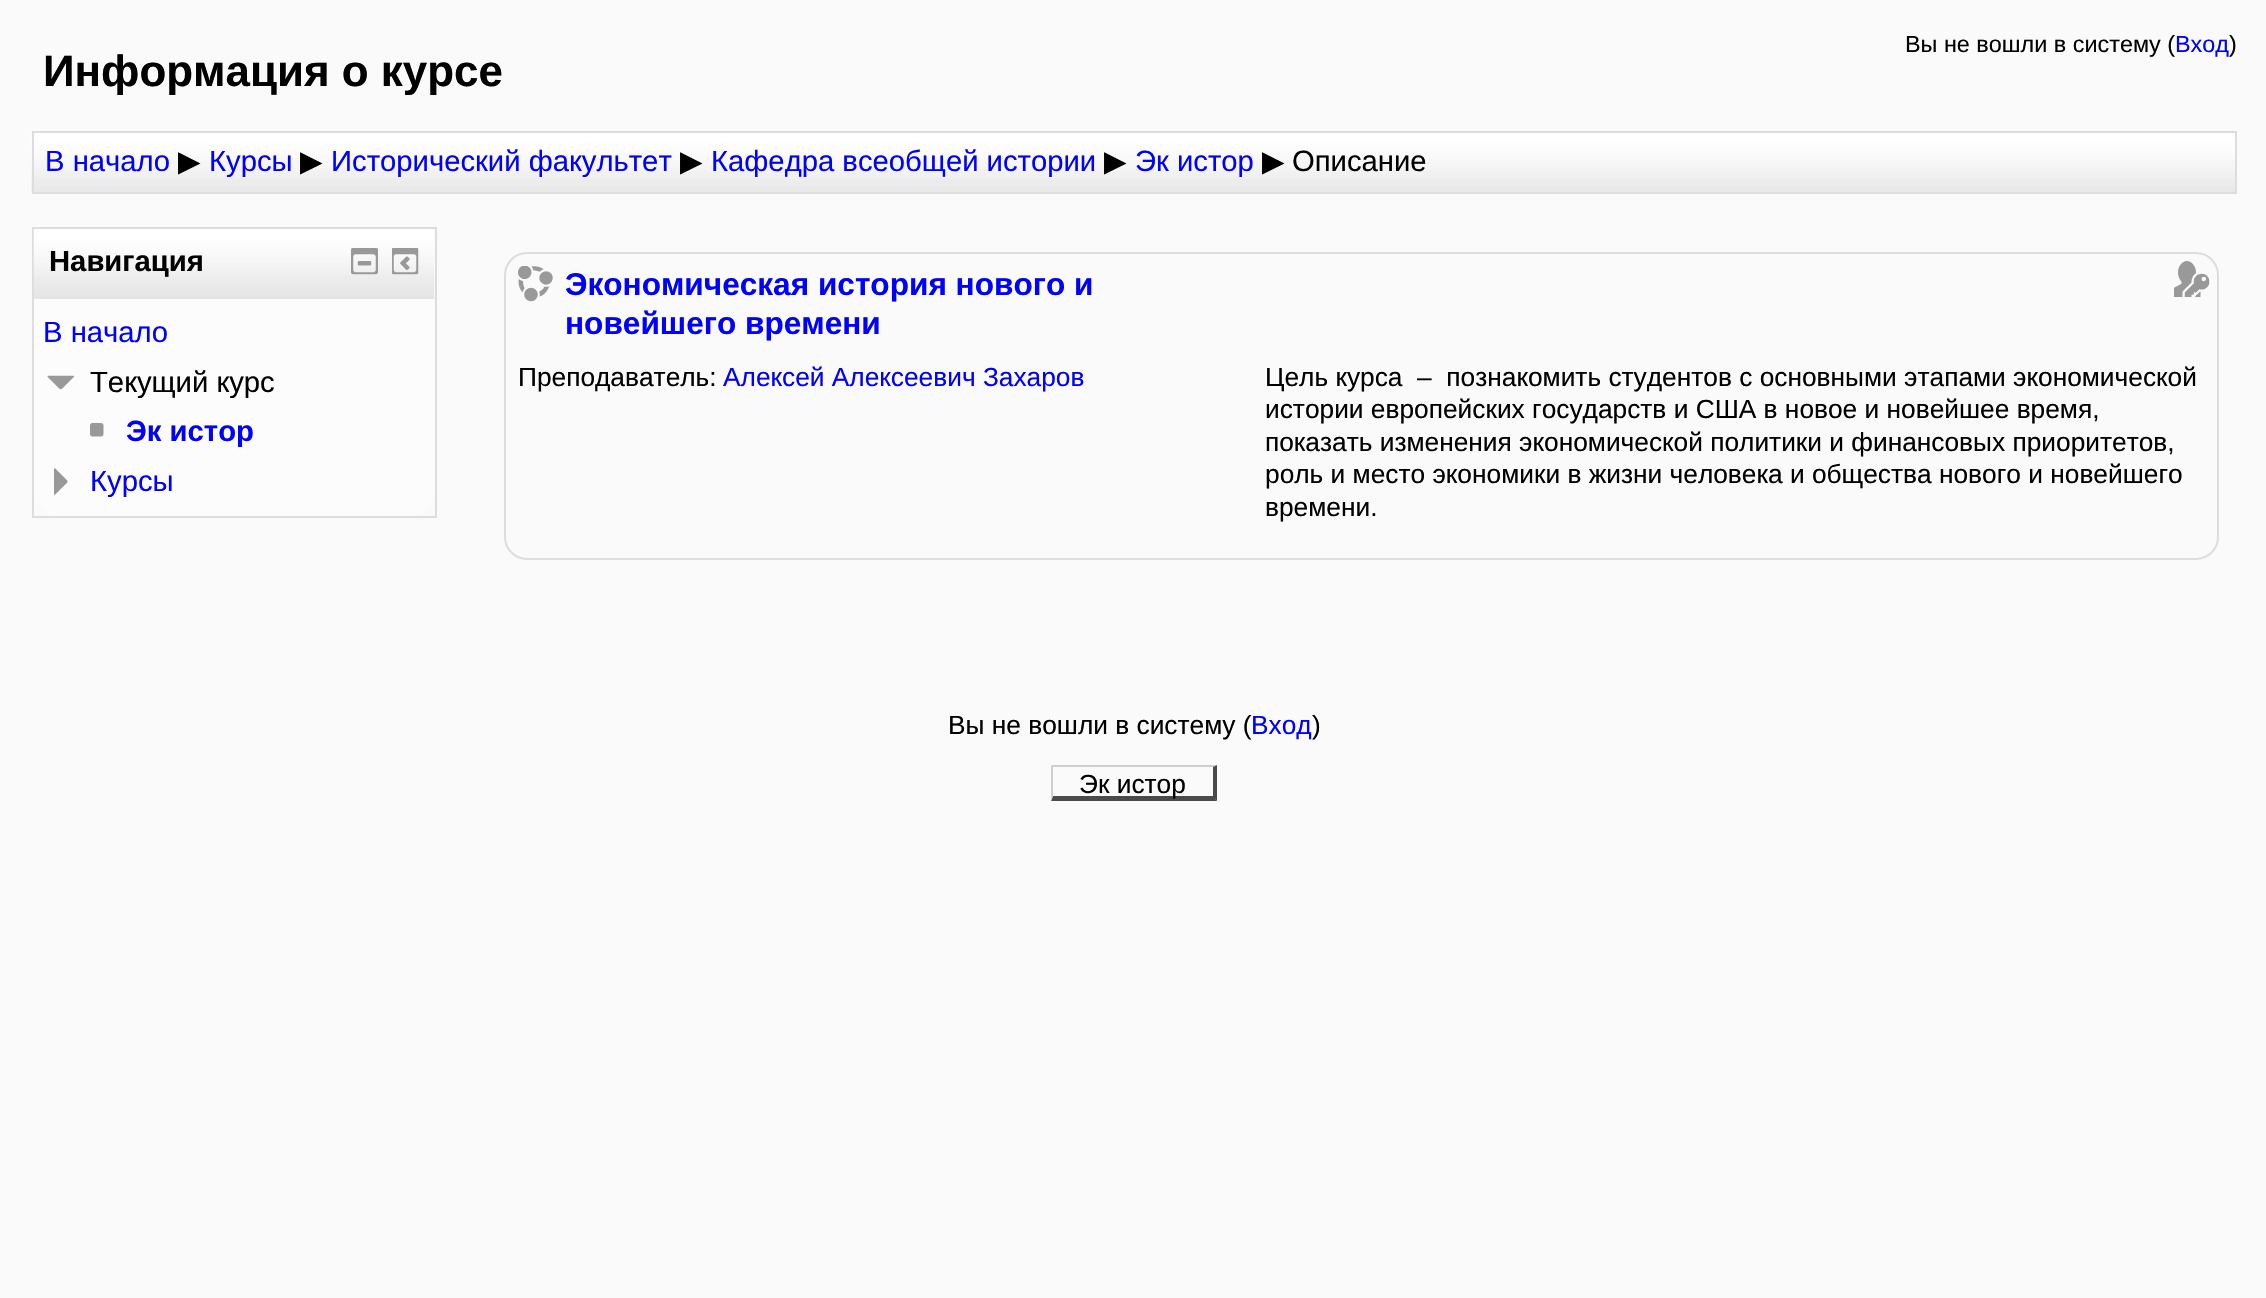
#include "include/core/SkBlurTypes.h"
#include "include/core/SkCanvas.h"
#include "include/core/SkData.h"
#include "include/core/SkFont.h"
#include "include/core/SkFontMgr.h"
#include "include/core/SkImage.h"
#include "include/core/SkMaskFilter.h"
#include "include/core/SkPaint.h"
#include "include/core/SkPathBuilder.h"
#include "include/core/SkTextBlob.h"
#include "include/effects/SkDashPathEffect.h"
#include "include/effects/SkGradientShader.h"
#include "include/utils/SkParsePath.h"

extern sk_sp<SkFontMgr> fontMgr;

void draw(SkCanvas* canvas) {
    SkPaint p;
    p.setAntiAlias(true);
    auto font = [&](const char* family, int weight, float size, bool italic = false) {
        SkFontStyle style(weight, SkFontStyle::kNormal_Width,
            italic ? SkFontStyle::kItalic_Slant : SkFontStyle::kUpright_Slant);
        SkFont result(fontMgr->matchFamilyStyle(family, style), size);
        result.setSubpixel(true);
        return result;
    };
    auto drawPhoto = [&](const char* path, float l, float t, float r, float b) {
        auto image = SkImages::DeferredFromEncodedData(SkData::MakeFromFileName(path));
        canvas->drawImageRect(image, SkRect::MakeLTRB(l, t, r, b), SkSamplingOptions());
    };
    canvas->clear(0xFFFAFAFA);
    auto font1 = font("Liberation Sans", 400, 23.4f);
    p.setColor(0xFF000000);
    canvas->drawString("Вы не вошли в систему (", 1905, 52, font1, p);
    p.setColor(0xFF0000FF);
    canvas->drawString("Вход", 2175, 52, font1, p);
    p.setColor(0xFF000000);
    canvas->drawString(")", 2229, 52, font1, p);
    auto font2 = font("Liberation Sans", 700, 43.9f);
    canvas->drawString("Информация о курсе", 43, 86, font2, p);
    drawPhoto("media/1.png", 31, 132, 2235, 194);
    p.setStyle(SkPaint::kStroke_Style);
    p.setStrokeWidth(2);
    p.setColor(0xFFDDDDDD);
    canvas->drawRect(SkRect::MakeLTRB(33, 132, 2236, 193), p);
    auto font3 = font("Liberation Sans", 400, 29.25f);
    p.setStyle(SkPaint::kFill_Style);
    p.setColor(0xFF0000FF);
    canvas->drawString("В начало", 45, 171, font3, p);
    auto font4 = font("DejaVu Sans", 400, 29.25f);
    p.setColor(0xFF000000);
    canvas->drawString("▶", 178, 171, font4, p);
    p.setColor(0xFF0000FF);
    canvas->drawString("Курсы", 209, 171, font3, p);
    p.setColor(0xFF000000);
    canvas->drawString("▶", 300, 171, font4, p);
    p.setColor(0xFF0000FF);
    canvas->drawString("Исторический факультет", 331, 171, font3, p);
    p.setColor(0xFF000000);
    canvas->drawString("▶", 680, 171, font4, p);
    p.setColor(0xFF0000FF);
    canvas->drawString("Кафедра всеобщей истории", 711, 171, font3, p);
    p.setColor(0xFF000000);
    canvas->drawString("▶", 1104, 171, font4, p);
    p.setColor(0xFF0000FF);
    canvas->drawString("Эк истор", 1135, 171, font3, p);
    p.setColor(0xFF000000);
    canvas->drawString("▶", 1262, 171, font4, p);
    canvas->drawString("Описание", 1292, 171, font3, p);
    p.setStyle(SkPaint::kStroke_Style);
    p.setColor(0xFFDDDDDD);
    canvas->drawRect(SkRect::MakeLTRB(33, 228, 436, 517), p);
    drawPhoto("media/2.png", 33, 229, 435, 300);
    auto font5 = font("Liberation Sans", 700, 29.25f);
    p.setStyle(SkPaint::kFill_Style);
    p.setColor(0xFF000000);
    canvas->drawString("Навигация", 49, 271, font5, p);
    drawPhoto("media/3.png", 351, 248, 378, 275);
    drawPhoto("media/4.png", 392, 248, 419, 275);
    p.setColor(0xFFFCFCFC);
    canvas->drawPath(SkPathBuilder().moveTo(34, 299).lineTo(434, 299).lineTo(434, 492).cubicTo(434, 504.5f, 423.5f, 515, 411, 515).lineTo(57, 515).cubicTo(44.5f, 515, 34, 504.5f, 34, 492).close().detach(), p);
    p.setColor(0xFF0000FF);
    canvas->drawString("В начало", 43, 342, font3, p);
    drawPhoto("media/5.png", 47, 375, 74, 390);
    p.setColor(0xFF000000);
    canvas->drawString("Текущий курс", 90, 392, font3, p);
    drawPhoto("media/6.png", 89, 423, 104, 437);
    p.setColor(0xFF0000FF);
    canvas->drawString("Эк истор", 126, 441, font5, p);
    drawPhoto("media/7.png", 54, 468, 68, 495);
    canvas->drawString("Курсы", 90, 491, font3, p);
    p.setStyle(SkPaint::kStroke_Style);
    p.setColor(0xFFDDDDDD);
    canvas->drawRoundRect(SkRect::MakeLTRB(505, 253, 2218, 559), 22, 22, p);
    drawPhoto("media/8.png", 518, 266, 553, 302);
    auto font6 = font("Liberation Sans", 700, 31.6f);
    p.setStyle(SkPaint::kFill_Style);
    p.setColor(0xFF0000FF);
    canvas->drawString("Экономическая история нового и", 565, 295, font6, p);
    canvas->drawString("новейшего времени", 565, 334, font6, p);
    drawPhoto("media/9.png", 2174, 261, 2210, 297);
    auto font7 = font("Liberation Sans", 400, 26.3f);
    p.setColor(0xFF000000);
    canvas->drawString("Преподаватель:", 518, 386, font7, p);
    p.setColor(0xFF0000FF);
    canvas->drawString("Алексей Алексеевич Захаров", 723, 386, font7, p);
    p.setColor(0xFF000000);
    {
        const struct { const char* s; float x, y; } items[] = {
            {"Цель курса  –  познакомить студентов с основными этапами экономической", 1265, 386},
            {"истории европейских государств и США в новое и новейшее время,", 1265, 418},
            {"показать изменения экономической политики и финансовых приоритетов,", 1265, 451},
            {"роль и место экономики в жизни человека и общества нового и новейшего", 1265, 483},
            {"времени.", 1265, 516},
            {"Вы не вошли в систему (", 948, 734},
        };
        for (auto [s, x, y] : items) {
            canvas->drawString(s, x, y, font7, p);
        }
    }
    p.setColor(0xFF0000FF);
    canvas->drawString("Вход", 1251, 734, font7, p);
    p.setColor(0xFF000000);
    canvas->drawString(")", 1312, 734, font7, p);
    p.setColor(0xFFCECECE);
    canvas->drawPath(SkPathBuilder().moveTo(1051, 765).lineTo(1217, 765).lineTo(1213, 767).lineTo(1053, 767).close().detach(), p);
    p.setColor(0xFF4A4A4A);
    canvas->drawPath(SkPathBuilder().moveTo(1217, 765).lineTo(1217, 801).lineTo(1213, 796.5f).lineTo(1213, 767).close().detach(), p);
    canvas->drawPath(SkPathBuilder().moveTo(1217, 801).lineTo(1051, 801).lineTo(1053, 796).lineTo(1213, 796).close().detach(), p);
    p.setColor(0xFF000000);
    canvas->drawString("Эк истор", 1079, 793, font7, p);
    p.setColor(0xFFCECECE);
    canvas->drawPath(SkPathBuilder().moveTo(1051, 801).lineTo(1051, 765).lineTo(1053, 767).lineTo(1053, 796.5f).close().detach(), p);
}
